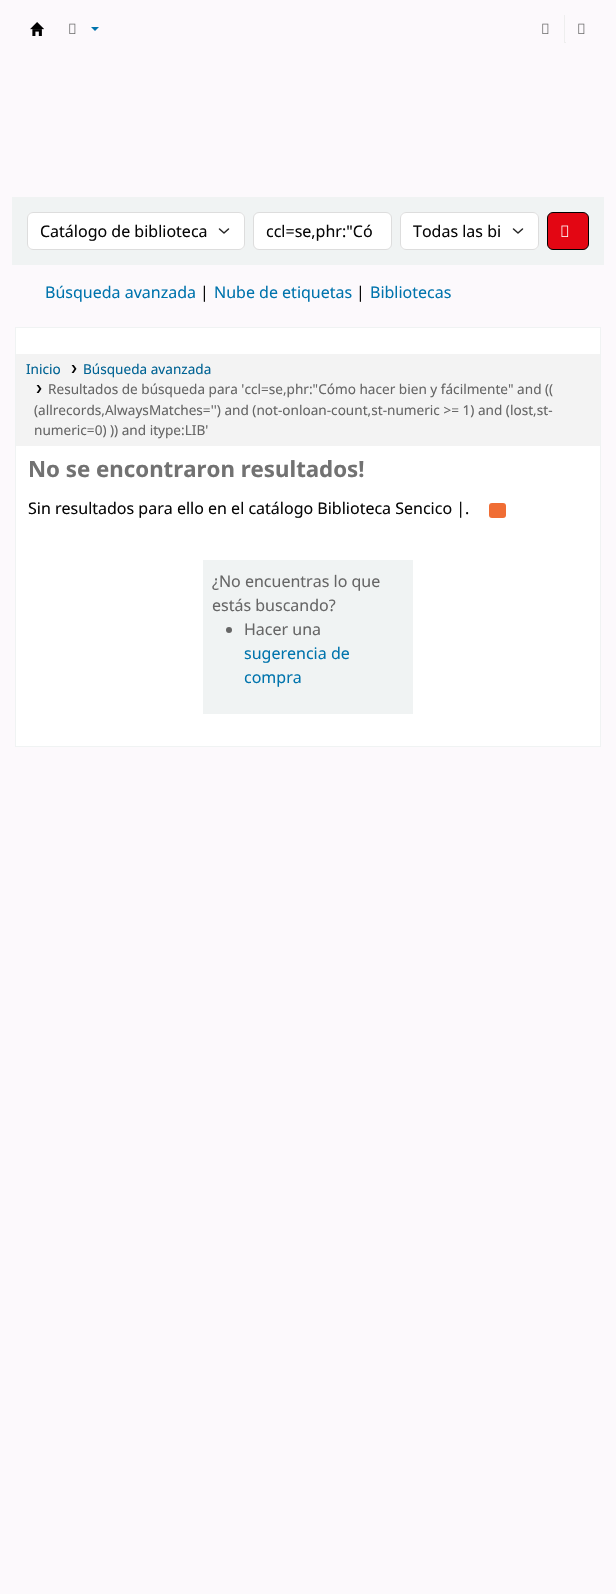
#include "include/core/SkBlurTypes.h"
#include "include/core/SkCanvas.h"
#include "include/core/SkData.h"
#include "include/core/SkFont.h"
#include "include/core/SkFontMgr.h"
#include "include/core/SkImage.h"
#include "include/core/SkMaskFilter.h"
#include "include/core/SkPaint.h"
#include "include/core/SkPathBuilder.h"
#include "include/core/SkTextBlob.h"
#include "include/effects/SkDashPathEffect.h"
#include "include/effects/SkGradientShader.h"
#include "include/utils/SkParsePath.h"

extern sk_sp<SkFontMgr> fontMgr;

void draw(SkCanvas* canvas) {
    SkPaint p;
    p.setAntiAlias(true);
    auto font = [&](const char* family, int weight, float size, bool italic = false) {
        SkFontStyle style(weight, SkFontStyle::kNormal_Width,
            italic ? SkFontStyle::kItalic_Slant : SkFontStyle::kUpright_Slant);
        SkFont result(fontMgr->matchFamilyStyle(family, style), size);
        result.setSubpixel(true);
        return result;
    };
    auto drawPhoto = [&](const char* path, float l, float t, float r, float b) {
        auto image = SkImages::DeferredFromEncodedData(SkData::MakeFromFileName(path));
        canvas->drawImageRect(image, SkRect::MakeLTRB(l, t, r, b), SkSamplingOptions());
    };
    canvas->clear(0xFFFCF9FC);
    drawPhoto("media/1.png", 30, 22, 44, 36);
    drawPhoto("media/2.png", 69, 23, 76, 34);
    p.setColor(0xFF0074AD);
    canvas->drawPath(SkPathBuilder().moveTo(91, 27).lineTo(99, 27).lineTo(95, 31).close().detach(), p);
    drawPhoto("media/2.png", 542, 23, 549, 34);
    p.setColor(0xFFEEEEEE);
    canvas->drawRect(SkRect::MakeLTRB(564, 42, 566, 43), p);
    canvas->drawRect(SkRect::MakeLTRB(564, 15, 565, 43), p);
    drawPhoto("media/2.png", 578, 23, 585, 34);
    p.setColor(0xFFF0F3F3);
    canvas->drawRect(SkRect::MakeLTRB(12, 197, 604, 265), p);
    p.setColor(0xFFFFFFFF);
    canvas->drawRoundRect(SkRect::MakeLTRB(27, 212, 245, 250), 6, 6, p);
    p.setStyle(SkPaint::kStroke_Style);
    p.setStrokeWidth(1.5f);
    p.setStrokeCap(SkPaint::kRound_Cap);
    p.setStrokeJoin(SkPaint::kRound_Join);
    p.setColor(0xFF252525);
    canvas->drawPath(SkPathBuilder().moveTo(219.5f, 229).lineTo(224, 233).lineTo(228.5f, 229).detach(), p);
    p.setStrokeWidth(1);
    p.setStrokeCap(SkPaint::kButt_Cap);
    p.setStrokeJoin(SkPaint::kMiter_Join);
    p.setColor(0xFFDDDDDD);
    canvas->drawRoundRect(SkRect::MakeLTRB(27.5f, 212.5f, 244.5f, 249.5f), 5.5f, 5.5f, p);
    auto font1 = font("Noto Sans", 400, 16);
    p.setStyle(SkPaint::kFill_Style);
    p.setColor(0xFF070707);
    canvas->drawString("Catálogo de biblioteca", 40, 237, font1, p);
    p.setColor(0xFFFFFFFF);
    canvas->drawRoundRect(SkRect::MakeLTRB(253.5f, 212.5f, 391.5f, 249.5f), 5.5f, 5.5f, p);
    p.setStyle(SkPaint::kStroke_Style);
    p.setColor(0xFFDDDDDD);
    canvas->drawRoundRect(SkRect::MakeLTRB(253.5f, 212.5f, 391.5f, 249.5f), 5.5f, 5.5f, p);
    p.setStyle(SkPaint::kFill_Style);
    p.setColor(0xFF070707);
    canvas->drawString("ccl=se,phr:\"Có", 266, 237, font1, p);
    p.setColor(0xFFFFFFFF);
    canvas->drawRoundRect(SkRect::MakeLTRB(400, 212, 539, 250), 6, 6, p);
    p.setStyle(SkPaint::kStroke_Style);
    p.setStrokeWidth(1.5f);
    p.setStrokeCap(SkPaint::kRound_Cap);
    p.setStrokeJoin(SkPaint::kRound_Join);
    p.setColor(0xFF252525);
    canvas->drawPath(SkPathBuilder().moveTo(513.5f, 229).lineTo(518, 233).lineTo(522.5f, 229).detach(), p);
    p.setStrokeWidth(1);
    p.setStrokeCap(SkPaint::kButt_Cap);
    p.setStrokeJoin(SkPaint::kMiter_Join);
    p.setColor(0xFFDDDDDD);
    canvas->drawRoundRect(SkRect::MakeLTRB(400.5f, 212.5f, 538.5f, 249.5f), 5.5f, 5.5f, p);
    p.setStyle(SkPaint::kFill_Style);
    p.setColor(0xFF070707);
    canvas->drawString("Todas las bi", 413, 237, font1, p);
    p.setColor(0xFFE30613);
    canvas->drawRoundRect(SkRect::MakeLTRB(547.5f, 212.5f, 588.5f, 249.5f), 5.5f, 5.5f, p);
    p.setStyle(SkPaint::kStroke_Style);
    p.setColor(0xFF000000);
    canvas->drawRoundRect(SkRect::MakeLTRB(547.5f, 212.5f, 588.5f, 249.5f), 5.5f, 5.5f, p);
    drawPhoto("media/3.png", 561, 225, 569, 237);
    p.setStyle(SkPaint::kFill_Style);
    p.setColor(0xFF0074AD);
    canvas->drawString("Búsqueda avanzada", 45, 298, font1, p);
    p.setColor(0xFF070707);
    canvas->drawString("|", 200, 298, font1, p);
    p.setColor(0xFF0074AD);
    canvas->drawString("Nube de etiquetas", 214, 298, font1, p);
    p.setColor(0xFF070707);
    canvas->drawString("|", 356, 298, font1, p);
    p.setColor(0xFF0074AD);
    canvas->drawString("Bibliotecas", 370, 298, font1, p);
    p.setColor(0xFFFFFFFF);
    canvas->drawRect(SkRect::MakeLTRB(15.5f, 327.5f, 600.5f, 746.5f), p);
    p.setStyle(SkPaint::kStroke_Style);
    p.setColor(0xFFF0F3F3);
    canvas->drawRect(SkRect::MakeLTRB(15.5f, 327.5f, 600.5f, 746.5f), p);
    p.setStyle(SkPaint::kFill_Style);
    p.setColor(0xFFF3F3F3);
    canvas->drawRect(SkRect::MakeLTRB(16, 354, 600, 446), p);
    auto font2 = font("Noto Sans", 400, 13.6f);
    p.setColor(0xFF006394);
    canvas->drawString("Inicio", 26, 374, font2, p);
    drawPhoto("media/4.png", 71, 365, 77, 373);
    canvas->drawString("Búsqueda avanzada", 83, 374, font2, p);
    drawPhoto("media/4.png", 36, 385, 42, 393);
    p.setColor(0xFF666666);
    {
        const struct { const char* s; float x, y; } items[] = {
            {"Resultados de búsqueda para 'ccl=se,phr:\"Cómo hacer bien y fácilmente\" and ((", 48, 394},
            {"(allrecords,AlwaysMatches='') and (not-onloan-count,st-numeric >= 1) and (lost,st-", 34, 415},
            {"numeric=0) )) and itype:LIB'", 34, 435},
        };
        for (auto [s, x, y] : items) {
            canvas->drawString(s, x, y, font2, p);
        }
    }
    auto font3 = font("Noto Sans", 700, 22.25f);
    p.setColor(0xFF727272);
    canvas->drawString("No se encontraron resultados!", 28, 477, font3, p);
    p.setColor(0xFF070707);
    canvas->drawString("Sin resultados para ello en el catálogo Biblioteca Sencico |.", 28, 514, font1, p);
    p.setColor(0xFFF06D34);
    canvas->drawRoundRect(SkRect::MakeLTRB(489, 503, 506, 518), 3, 3, p);
    p.setColor(0xFFF0F3F3);
    canvas->drawRect(SkRect::MakeLTRB(203, 560, 413, 714), p);
    p.setColor(0xFF666666);
    canvas->drawString("¿No encuentras lo que", 212, 587, font1, p);
    canvas->drawString("estás buscando?", 212, 611, font1, p);
    canvas->drawCircle(229, 630, 3, p);
    canvas->drawString("Hacer una", 244, 635, font1, p);
    p.setColor(0xFF0074AD);
    canvas->drawString("sugerencia de", 244, 659, font1, p);
    canvas->drawString("compra", 244, 683, font1, p);
}
